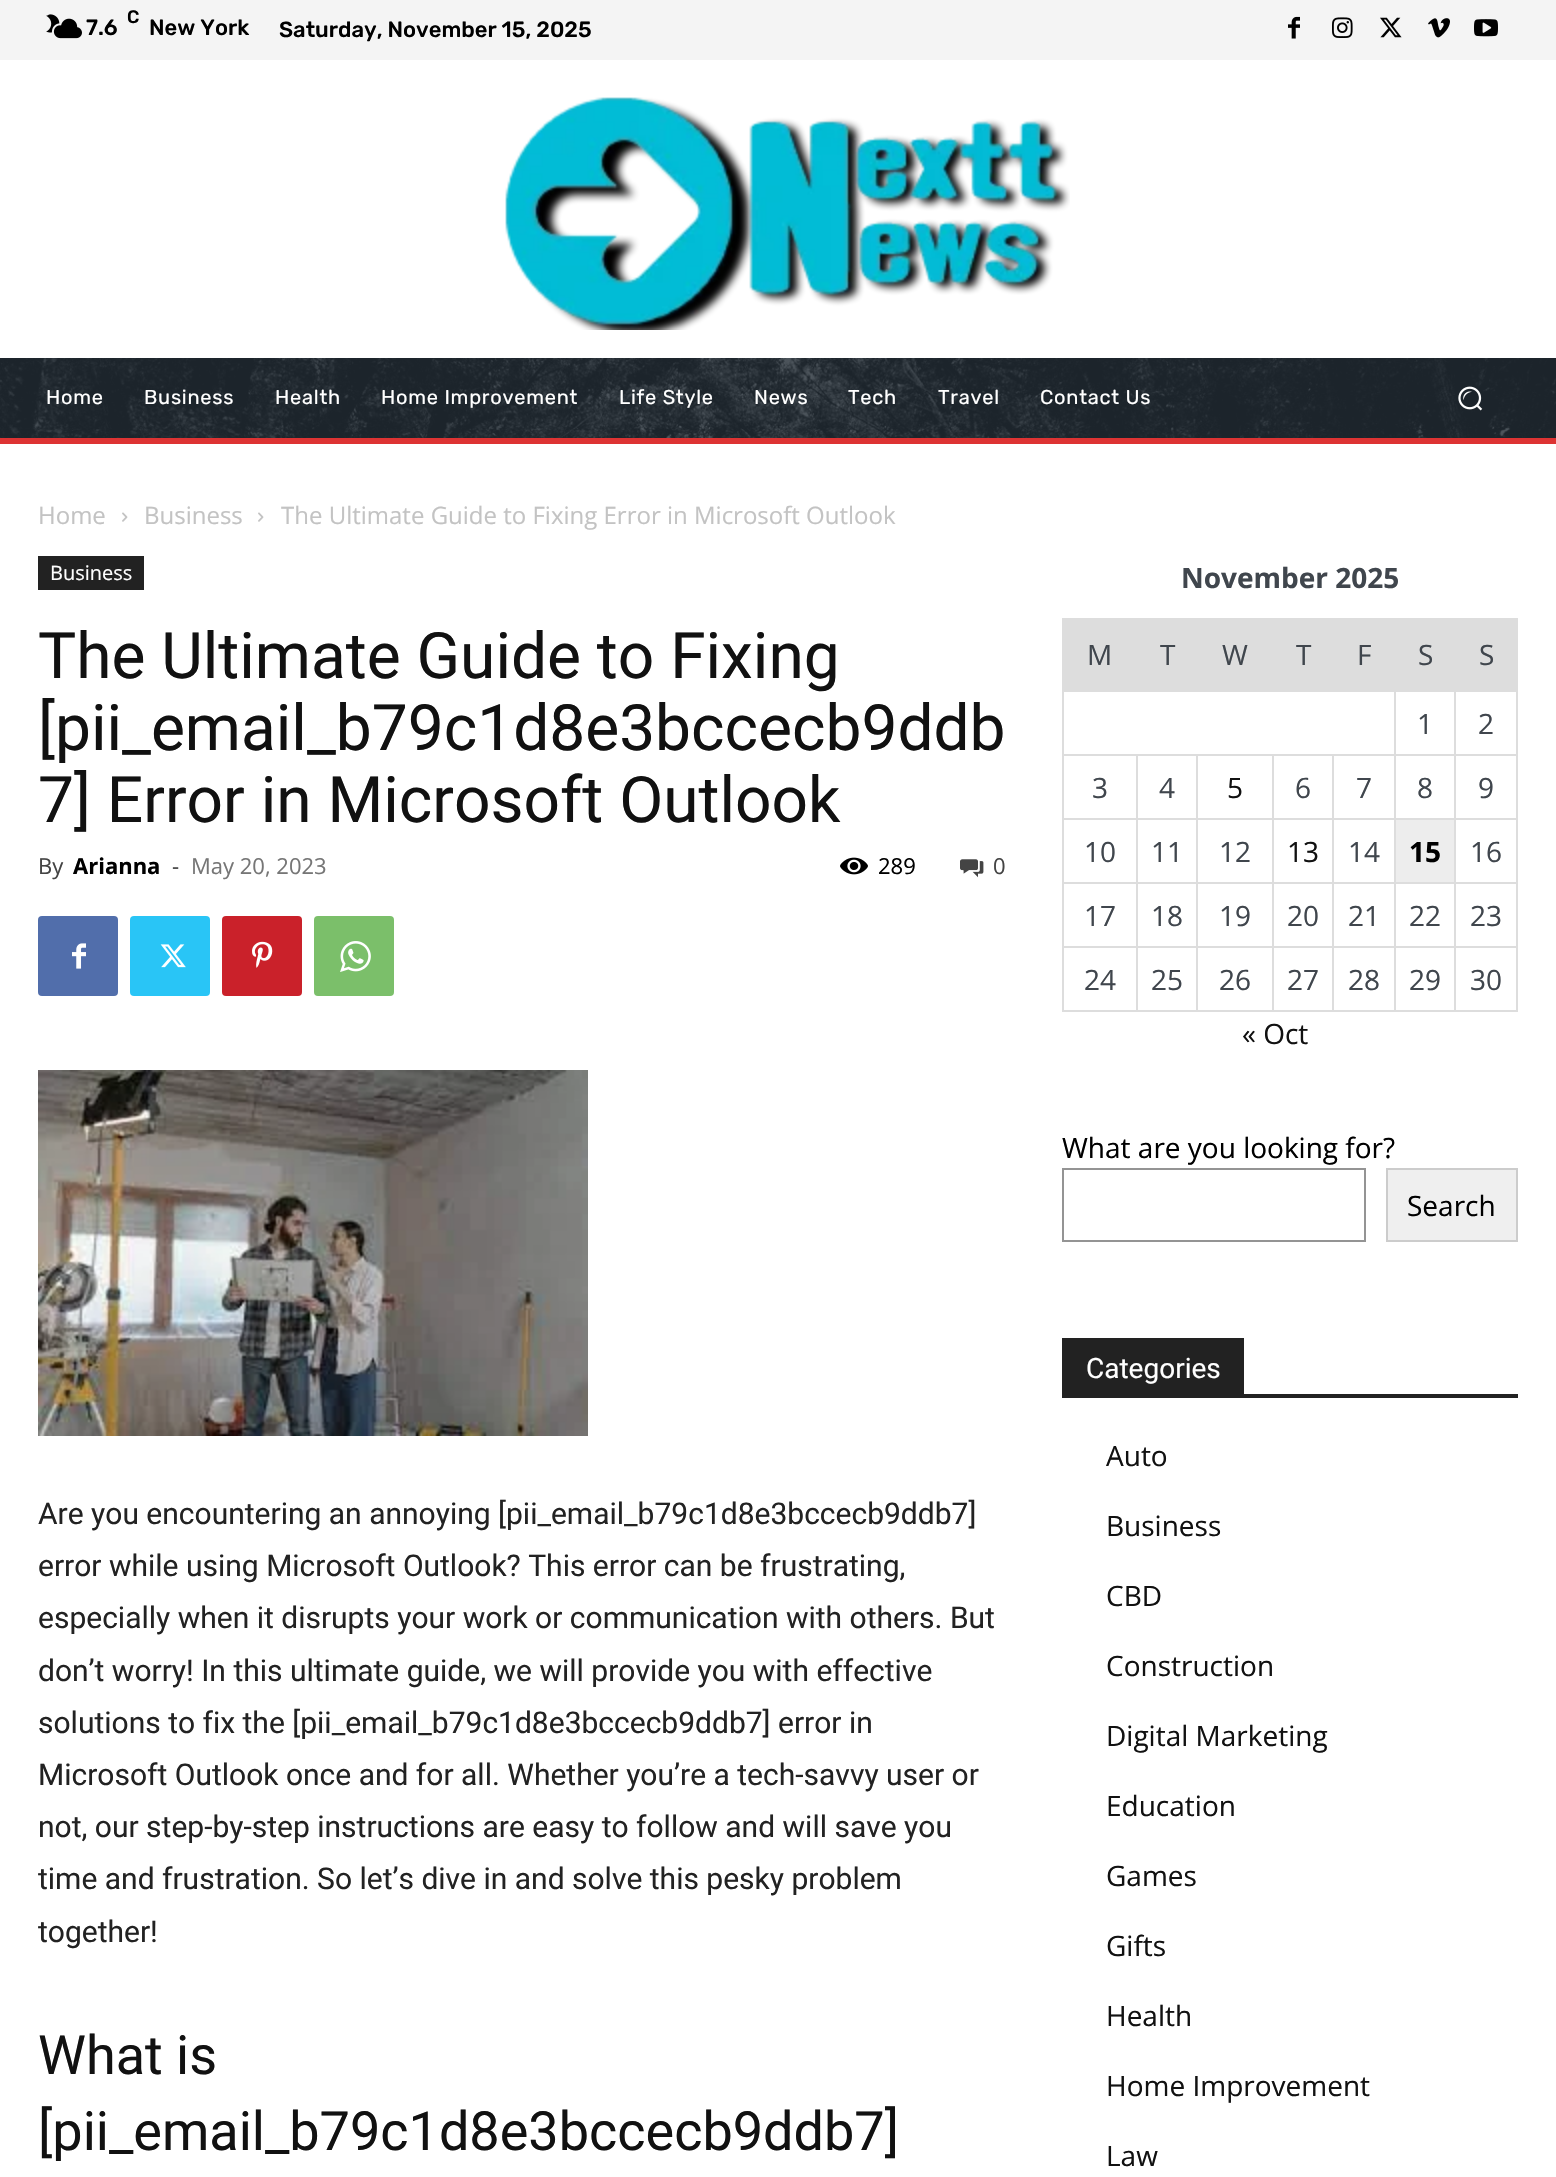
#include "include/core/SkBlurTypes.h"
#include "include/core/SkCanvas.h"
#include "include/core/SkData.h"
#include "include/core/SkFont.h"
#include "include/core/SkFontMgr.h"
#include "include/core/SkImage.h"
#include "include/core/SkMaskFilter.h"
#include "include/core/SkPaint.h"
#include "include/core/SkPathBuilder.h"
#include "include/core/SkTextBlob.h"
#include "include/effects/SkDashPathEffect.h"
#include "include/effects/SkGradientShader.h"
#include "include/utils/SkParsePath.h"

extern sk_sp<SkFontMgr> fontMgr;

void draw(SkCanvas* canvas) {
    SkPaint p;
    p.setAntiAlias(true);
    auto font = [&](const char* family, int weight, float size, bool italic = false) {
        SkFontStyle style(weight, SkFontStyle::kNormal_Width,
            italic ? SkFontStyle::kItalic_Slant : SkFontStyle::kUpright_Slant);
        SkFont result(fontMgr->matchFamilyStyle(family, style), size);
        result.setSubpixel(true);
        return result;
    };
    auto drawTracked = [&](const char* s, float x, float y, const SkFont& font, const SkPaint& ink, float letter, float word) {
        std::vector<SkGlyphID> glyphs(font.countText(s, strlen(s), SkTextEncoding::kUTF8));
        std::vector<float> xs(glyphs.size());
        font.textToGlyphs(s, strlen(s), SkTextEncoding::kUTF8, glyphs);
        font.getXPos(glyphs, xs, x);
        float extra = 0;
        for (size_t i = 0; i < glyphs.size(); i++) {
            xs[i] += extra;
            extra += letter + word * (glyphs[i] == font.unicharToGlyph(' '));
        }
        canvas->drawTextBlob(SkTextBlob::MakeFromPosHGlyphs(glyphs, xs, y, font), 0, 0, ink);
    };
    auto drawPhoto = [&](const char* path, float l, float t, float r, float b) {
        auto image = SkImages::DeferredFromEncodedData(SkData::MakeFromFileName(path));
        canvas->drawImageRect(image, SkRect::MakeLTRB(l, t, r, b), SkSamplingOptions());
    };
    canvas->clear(0xFFFFFFFF);
    p.setColor(0xFFF4F4F4);
    canvas->drawRect(SkRect::MakeLTRB(0, 0, 1556, 60), p);
    drawPhoto("media/1.png", 46, 14, 82, 39);
    auto font1 = font("Rubik", 500, 18);
    p.setColor(0xFF000000);
    canvas->drawString("C", 127, 23, font1, p);
    auto font2 = font("Rubik", 500, 22);
    {
        const struct { const char* s; float x, y; } items[] = {
            {"7.6", 86, 35},
            {"New York", 149, 35},
            {"Saturday, November 15, 2025", 279, 37},
        };
        for (auto [s, x, y] : items) {
            canvas->drawString(s, x, y, font2, p);
        }
    }
    drawPhoto("media/2.png", 1288, 16, 1300, 39);
    drawPhoto("media/3.png", 1332, 17, 1353, 38);
    drawPhoto("media/4.png", 1380, 17, 1402, 38);
    drawPhoto("media/5.png", 1428, 18, 1450, 38);
    drawPhoto("media/6.png", 1474, 19, 1498, 37);
    drawPhoto("media/7.png", 505, 97, 1070, 330);
    p.setColor(0xFF232D35);
    canvas->drawRect(SkRect::MakeLTRB(0, 358, 1556, 438), p);
    drawPhoto("media/8.png", 0, 358, 1556, 438);
    auto font3 = font("Rubik", 400, 20);
    p.setColor(0xFFFFFFFF);
    {
        const struct { const char* s; float x, y; } items[] = {
            {"Home", 46, 404},
            {"Business", 144, 404},
            {"Health", 275, 404},
            {"Home Improvement", 381, 404},
            {"Life Style", 619, 404},
            {"News", 754, 404},
            {"Tech", 848, 404},
            {"Travel", 938, 404},
            {"Contact Us", 1040, 404},
        };
        for (auto [s, x, y] : items) {
            drawTracked(s, x, y, font3, p, 0.75f, 0);
        }
    }
    drawPhoto("media/9.png", 1458, 386, 1483, 411);
    p.setColor(0xFFDD3333);
    canvas->drawRect(SkRect::MakeLTRB(0, 438, 1556, 444), p);
    auto font4 = font("Open Sans", 400, 24);
    p.setColor(0xFFC3C3C3);
    canvas->drawString("Home", 38, 524, font4, p);
    drawPhoto("media/10.png", 122, 512, 128, 522);
    canvas->drawString("Business", 144, 524, font4, p);
    drawPhoto("media/10.png", 258, 512, 264, 522);
    canvas->drawString("The Ultimate Guide to Fixing Error in Microsoft Outlook", 281, 524, font4, p);
    p.setColor(0xFF222222);
    canvas->drawRect(SkRect::MakeLTRB(38, 556, 144, 590), p);
    auto font5 = font("Open Sans", 400, 20);
    p.setColor(0xFFFFFFFF);
    canvas->drawString("Business", 50, 580, font5, p);
    auto font6 = font("Roboto", 400, 64);
    p.setColor(0xFF111111);
    {
        const struct { const char* s; float x, y; } items[] = {
            {"The Ultimate Guide to Fixing", 38, 678},
            {"[pii_email_b79c1d8e3bccecb9ddb", 38, 750},
            {"7] Error in Microsoft Outlook", 38, 822},
        };
        for (auto [s, x, y] : items) {
            canvas->drawString(s, x, y, font6, p);
        }
    }
    auto font7 = font("Open Sans", 400, 22);
    p.setColor(0xFF444444);
    canvas->drawString("By", 38, 874, font7, p);
    auto font8 = font("Open Sans", 700, 22);
    p.setColor(0xFF000000);
    canvas->drawString("Arianna", 73, 874, font8, p);
    p.setColor(0xFF444444);
    canvas->drawString("-", 172, 874, font7, p);
    p.setColor(0xFF767676);
    canvas->drawString("May 20, 2023", 191, 874, font7, p);
    drawPhoto("media/11.png", 840, 857, 868, 875);
    p.setColor(0xFF000000);
    canvas->drawString("289", 878, 874, font7, p);
    drawPhoto("media/12.png", 960, 859, 984, 878);
    p.setColor(0xFF444444);
    canvas->drawString("0", 993, 874, font7, p);
    p.setColor(0xFF516EAB);
    canvas->drawRoundRect(SkRect::MakeLTRB(38, 916, 118, 996), 4, 4, p);
    drawPhoto("media/13.png", 72, 943, 86, 969);
    p.setColor(0xFF29C5F6);
    canvas->drawRoundRect(SkRect::MakeLTRB(130, 916, 210, 996), 4, 4, p);
    drawPhoto("media/14.png", 160, 944, 186, 968);
    p.setColor(0xFFCA212A);
    canvas->drawRoundRect(SkRect::MakeLTRB(222, 916, 302, 996), 4, 4, p);
    drawPhoto("media/15.png", 252, 941, 273, 968);
    p.setColor(0xFF7BBF6A);
    canvas->drawRoundRect(SkRect::MakeLTRB(314, 916, 394, 996), 4, 4, p);
    drawPhoto("media/16.png", 340, 941, 371, 972);
    drawPhoto("media/17.png", 38, 1070, 588, 1436);
    auto font9 = font("Roboto", 400, 30);
    p.setColor(0xFF222222);
    {
        const struct { const char* s; float x, y; } items[] = {
            {"Are you encountering an annoying [pii_email_b79c1d8e3bccecb9ddb7]", 38, 1524},
            {"error while using Microsoft Outlook? This error can be frustrating,", 38, 1576},
            {"especially when it disrupts your work or communication with others. But", 38, 1628},
            {"don’t worry! In this ultimate guide, we will provide you with effective", 38, 1681},
            {"solutions to fix the [pii_email_b79c1d8e3bccecb9ddb7] error in", 38, 1733},
            {"Microsoft Outlook once and for all. Whether you’re a tech-savvy user or", 38, 1785},
            {"not, our step-by-step instructions are easy to follow and will save you", 38, 1837},
            {"time and frustration. So let’s dive in and solve this pesky problem", 38, 1889},
            {"together!", 38, 1942},
        };
        for (auto [s, x, y] : items) {
            canvas->drawString(s, x, y, font9, p);
        }
    }
    auto font10 = font("Roboto", 400, 54);
    p.setColor(0xFF111111);
    canvas->drawString("What is", 38, 2074, font10, p);
    canvas->drawString("[pii_email_b79c1d8e3bccecb9ddb7]", 38, 2150, font10, p);
    auto font11 = font("Open Sans", 700, 28);
    p.setColor(0xFF40464D);
    canvas->drawString("November 2025", 1181, 588, font11, p);
    {
        const struct { float l, t, r, b; SkColor color; } items[] = {
            {1064, 620, 1394, 690, 0xFFDDDDDD},
            {1062, 618, 1518, 620, 0xFFDDDDDD},
            {1394, 620, 1518, 692, 0xFFDDDDDD},
            {1454, 754, 1518, 756, 0xFFDDDDDD},
            {1454, 818, 1518, 820, 0xFFDDDDDD},
            {1454, 882, 1518, 884, 0xFFDDDDDD},
            {1454, 946, 1518, 948, 0xFFDDDDDD},
            {1516, 946, 1518, 1012, 0xFFDDDDDD},
            {1454, 1010, 1518, 1012, 0xFFDDDDDD},
            {1454, 946, 1456, 1012, 0xFFDDDDDD},
            {1394, 946, 1456, 948, 0xFFDDDDDD},
            {1454, 882, 1456, 948, 0xFFDDDDDD},
            {1394, 882, 1456, 884, 0xFFDDDDDD},
            {1454, 818, 1456, 884, 0xFFDDDDDD},
            {1394, 818, 1456, 820, 0xFFDDDDDD},
            {1454, 754, 1456, 820, 0xFFDDDDDD},
            {1394, 754, 1456, 756, 0xFFDDDDDD},
            {1394, 1010, 1456, 1012, 0xFFDDDDDD},
            {1394, 946, 1396, 1012, 0xFFDDDDDD},
            {1332, 946, 1396, 948, 0xFFDDDDDD},
            {1394, 882, 1396, 948, 0xFFDDDDDD},
            {1332, 882, 1396, 884, 0xFFDDDDDD},
            {1394, 818, 1396, 884, 0xFFDDDDDD},
            {1332, 818, 1396, 820, 0xFFDDDDDD},
            {1394, 754, 1396, 820, 0xFFDDDDDD},
            {1332, 754, 1396, 756, 0xFFDDDDDD},
            {1394, 690, 1396, 756, 0xFFDDDDDD},
            {1062, 690, 1396, 692, 0xFFDDDDDD},
            {1332, 1010, 1396, 1012, 0xFFDDDDDD},
            {1332, 946, 1334, 1012, 0xFFDDDDDD},
            {1272, 946, 1334, 948, 0xFFDDDDDD},
            {1332, 882, 1334, 948, 0xFFDDDDDD},
            {1272, 882, 1334, 884, 0xFFDDDDDD},
            {1332, 818, 1334, 884, 0xFFDDDDDD},
            {1272, 818, 1334, 820, 0xFFDDDDDD},
            {1332, 754, 1334, 820, 0xFFDDDDDD},
            {1272, 754, 1334, 756, 0xFFDDDDDD},
            {1272, 1010, 1334, 1012, 0xFFDDDDDD},
            {1272, 946, 1274, 1012, 0xFFDDDDDD},
            {1196, 946, 1274, 948, 0xFFDDDDDD},
            {1272, 882, 1274, 948, 0xFFDDDDDD},
            {1196, 882, 1274, 884, 0xFFDDDDDD},
            {1272, 818, 1274, 884, 0xFFDDDDDD},
            {1196, 818, 1274, 820, 0xFFDDDDDD},
            {1272, 754, 1274, 820, 0xFFDDDDDD},
            {1196, 754, 1274, 756, 0xFFDDDDDD},
            {1196, 1010, 1274, 1012, 0xFFDDDDDD},
            {1196, 946, 1198, 1012, 0xFFDDDDDD},
            {1136, 946, 1198, 948, 0xFFDDDDDD},
            {1196, 882, 1198, 948, 0xFFDDDDDD},
            {1136, 882, 1198, 884, 0xFFDDDDDD},
            {1196, 818, 1198, 884, 0xFFDDDDDD},
            {1136, 818, 1198, 820, 0xFFDDDDDD},
            {1196, 754, 1198, 820, 0xFFDDDDDD},
            {1136, 754, 1198, 756, 0xFFDDDDDD},
            {1136, 1010, 1198, 1012, 0xFFDDDDDD},
            {1136, 946, 1138, 1012, 0xFFDDDDDD},
            {1062, 946, 1138, 948, 0xFFDDDDDD},
            {1136, 882, 1138, 948, 0xFFDDDDDD},
            {1062, 882, 1138, 884, 0xFFDDDDDD},
            {1136, 818, 1138, 884, 0xFFDDDDDD},
            {1062, 818, 1138, 820, 0xFFDDDDDD},
            {1136, 754, 1138, 820, 0xFFDDDDDD},
            {1062, 754, 1138, 756, 0xFFDDDDDD},
            {1062, 1010, 1138, 1012, 0xFFDDDDDD},
            {1062, 946, 1064, 1012, 0xFFDDDDDD},
            {1062, 882, 1064, 948, 0xFFDDDDDD},
            {1062, 818, 1064, 884, 0xFFDDDDDD},
            {1062, 754, 1064, 820, 0xFFDDDDDD},
            {1062, 690, 1064, 756, 0xFFDDDDDD},
            {1062, 618, 1064, 692, 0xFFDDDDDD},
        };
        for (auto [l, t, r, b, color] : items) {
            p.setColor(color);
            canvas->drawRect(SkRect::MakeLTRB(l, t, r, b), p);
        }
    }
    auto font12 = font("Open Sans", 400, 28);
    p.setColor(0xFF40464D);
    {
        const struct { const char* s; float x, y; } items[] = {
            {"M", 1087, 665},
            {"T", 1160, 665},
            {"W", 1222, 665},
            {"T", 1296, 665},
            {"F", 1357, 665},
            {"S", 1418, 665},
            {"S", 1479, 665},
            {"1", 1417, 734},
        };
        for (auto [s, x, y] : items) {
            canvas->drawString(s, x, y, font12, p);
        }
    }
    p.setColor(0xFFDDDDDD);
    canvas->drawRect(SkRect::MakeLTRB(1454, 690, 1456, 756), p);
    p.setColor(0xFF40464D);
    {
        const struct { const char* s; float x, y; } items[] = {
            {"2", 1478, 734},
            {"3", 1092, 798},
            {"4", 1159, 798},
        };
        for (auto [s, x, y] : items) {
            canvas->drawString(s, x, y, font12, p);
        }
    }
    p.setColor(0xFF111111);
    canvas->drawString("5", 1227, 798, font12, p);
    p.setColor(0xFF40464D);
    {
        const struct { const char* s; float x, y; } items[] = {
            {"6", 1295, 798},
            {"7", 1356, 798},
            {"8", 1417, 798},
        };
        for (auto [s, x, y] : items) {
            canvas->drawString(s, x, y, font12, p);
        }
    }
    {
        const struct { float l, t, r, b; SkColor color; } items[] = {
            {1516, 882, 1518, 948, 0xFFDDDDDD},
            {1516, 818, 1518, 884, 0xFFDDDDDD},
            {1516, 690, 1518, 820, 0xFFDDDDDD},
        };
        for (auto [l, t, r, b, color] : items) {
            p.setColor(color);
            canvas->drawRect(SkRect::MakeLTRB(l, t, r, b), p);
        }
    }
    p.setColor(0xFF40464D);
    {
        const struct { const char* s; float x, y; } items[] = {
            {"9", 1478, 798},
            {"10", 1084, 862},
            {"11", 1151, 862},
            {"12", 1219, 862},
        };
        for (auto [s, x, y] : items) {
            canvas->drawString(s, x, y, font12, p);
        }
    }
    p.setColor(0xFF111111);
    canvas->drawString("13", 1287, 862, font12, p);
    p.setColor(0xFF40464D);
    canvas->drawString("14", 1348, 862, font12, p);
    p.setColor(0xFFEDEDED);
    canvas->drawRect(SkRect::MakeLTRB(1396, 820, 1454, 882), p);
    p.setColor(0xFF000000);
    canvas->drawString("15", 1409, 862, font11, p);
    p.setColor(0xFF40464D);
    {
        const struct { const char* s; float x, y; } items[] = {
            {"16", 1470, 862},
            {"17", 1084, 926},
            {"18", 1151, 926},
            {"19", 1219, 926},
            {"20", 1287, 926},
            {"21", 1348, 926},
            {"22", 1409, 926},
            {"23", 1470, 926},
            {"24", 1084, 990},
            {"25", 1151, 990},
            {"26", 1219, 990},
            {"27", 1287, 990},
            {"28", 1348, 990},
            {"29", 1409, 990},
            {"30", 1470, 990},
        };
        for (auto [s, x, y] : items) {
            canvas->drawString(s, x, y, font12, p);
        }
    }
    p.setColor(0xFF111111);
    canvas->drawString("« Oct", 1242, 1044, font12, p);
    p.setColor(0xFF000000);
    canvas->drawString("What are you looking for?", 1062, 1158, font12, p);
    p.setStyle(SkPaint::kStroke_Style);
    p.setStrokeWidth(2);
    p.setColor(0xFF949494);
    canvas->drawRect(SkRect::MakeLTRB(1063, 1169, 1365, 1241), p);
    p.setStyle(SkPaint::kFill_Style);
    p.setColor(0xFFEFEFEF);
    canvas->drawRect(SkRect::MakeLTRB(1387, 1169, 1517, 1241), p);
    p.setStyle(SkPaint::kStroke_Style);
    p.setColor(0xFFCCCCCC);
    canvas->drawRect(SkRect::MakeLTRB(1387, 1169, 1517, 1241), p);
    p.setStyle(SkPaint::kFill_Style);
    p.setColor(0xFF000000);
    canvas->drawString("Search", 1407, 1216, font12, p);
    p.setColor(0xFF222222);
    canvas->drawRect(SkRect::MakeLTRB(1062, 1394, 1518, 1398), p);
    canvas->drawRect(SkRect::MakeLTRB(1062, 1338, 1244, 1394), p);
    auto font13 = font("Roboto", 400, 28);
    p.setColor(0xFFFFFFFF);
    canvas->drawString("Categories", 1086, 1378, font13, p);
    p.setColor(0xFF111111);
    {
        const struct { const char* s; float x, y; } items[] = {
            {"Auto", 1106, 1466},
            {"Business", 1106, 1536},
            {"CBD", 1106, 1606},
            {"Construction", 1106, 1676},
            {"Digital Marketing", 1106, 1746},
            {"Education", 1106, 1816},
            {"Games", 1106, 1886},
            {"Gifts", 1106, 1956},
            {"Health", 1106, 2026},
            {"Home Improvement", 1106, 2096},
            {"Law", 1106, 2166},
        };
        for (auto [s, x, y] : items) {
            canvas->drawString(s, x, y, font12, p);
        }
    }
}
